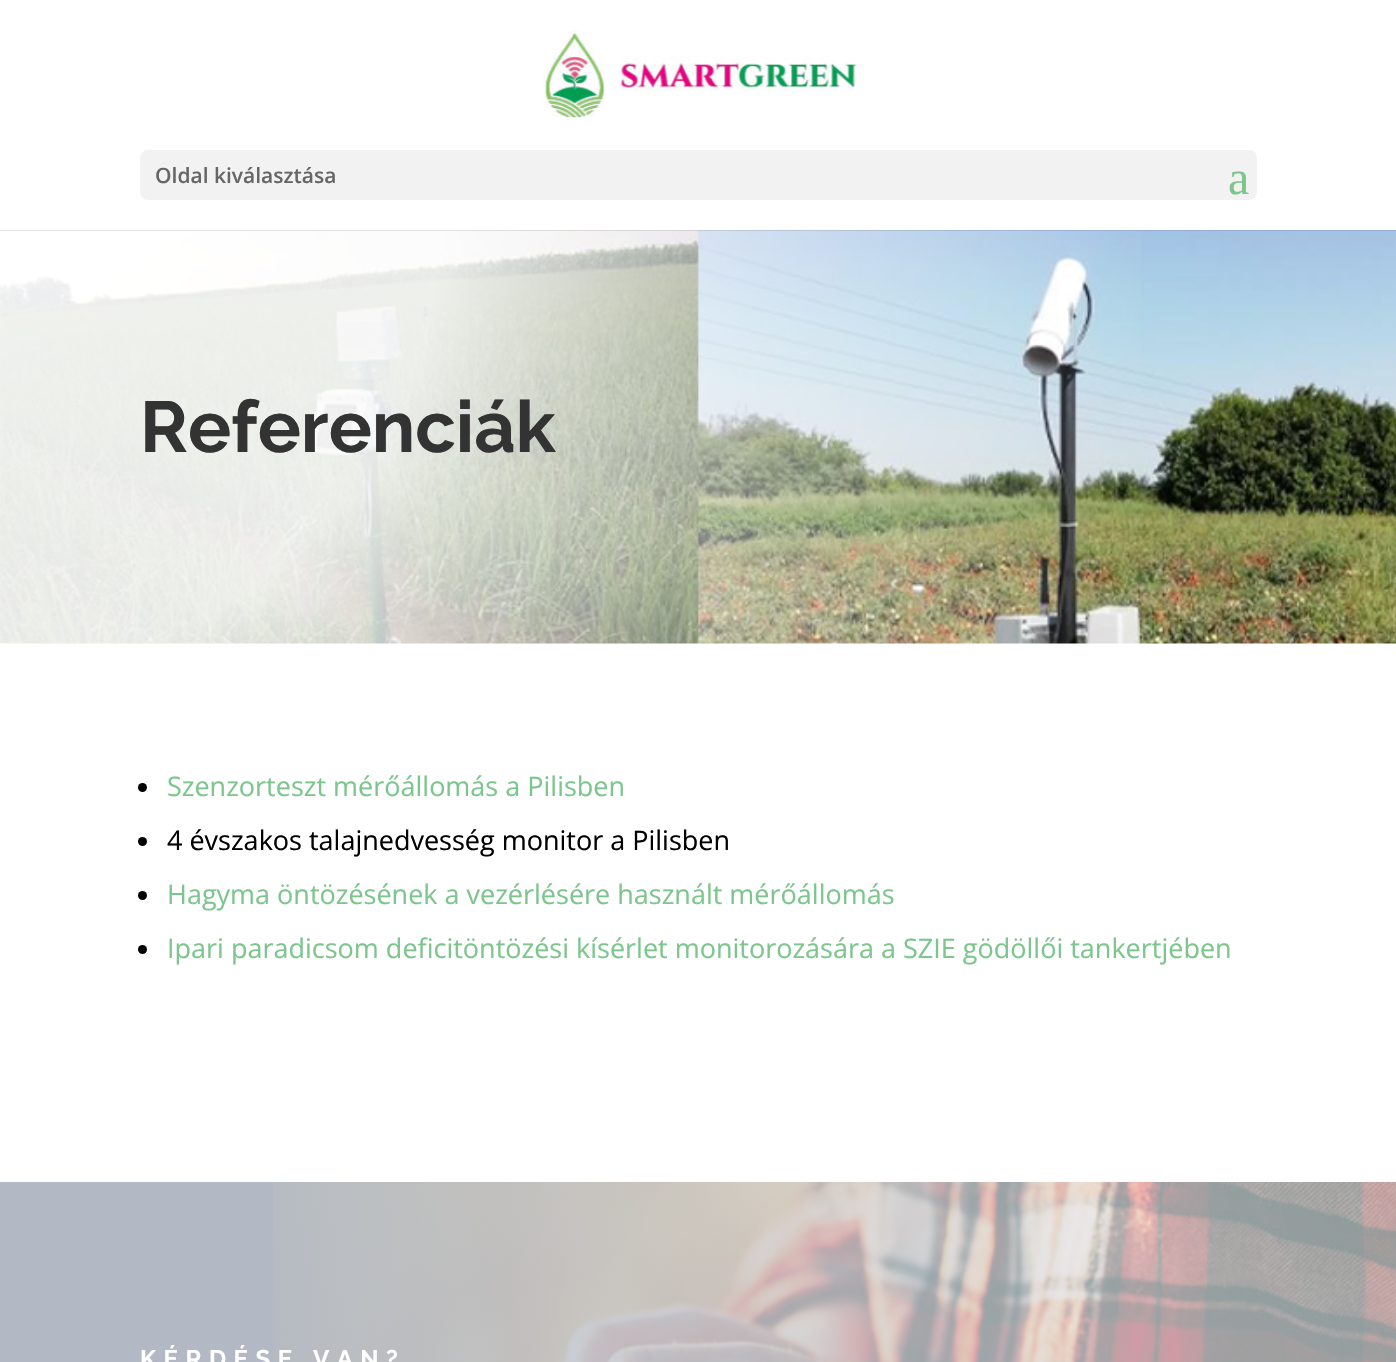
#include "include/core/SkBlurTypes.h"
#include "include/core/SkCanvas.h"
#include "include/core/SkData.h"
#include "include/core/SkFont.h"
#include "include/core/SkFontMgr.h"
#include "include/core/SkImage.h"
#include "include/core/SkMaskFilter.h"
#include "include/core/SkPaint.h"
#include "include/core/SkPathBuilder.h"
#include "include/core/SkTextBlob.h"
#include "include/effects/SkDashPathEffect.h"
#include "include/effects/SkGradientShader.h"
#include "include/utils/SkParsePath.h"

extern sk_sp<SkFontMgr> fontMgr;

void draw(SkCanvas* canvas) {
    SkPaint p;
    p.setAntiAlias(true);
    auto font = [&](const char* family, int weight, float size, bool italic = false) {
        SkFontStyle style(weight, SkFontStyle::kNormal_Width,
            italic ? SkFontStyle::kItalic_Slant : SkFontStyle::kUpright_Slant);
        SkFont result(fontMgr->matchFamilyStyle(family, style), size);
        result.setSubpixel(true);
        return result;
    };
    auto drawTracked = [&](const char* s, float x, float y, const SkFont& font, const SkPaint& ink, float letter, float word) {
        std::vector<SkGlyphID> glyphs(font.countText(s, strlen(s), SkTextEncoding::kUTF8));
        std::vector<float> xs(glyphs.size());
        font.textToGlyphs(s, strlen(s), SkTextEncoding::kUTF8, glyphs);
        font.getXPos(glyphs, xs, x);
        float extra = 0;
        for (size_t i = 0; i < glyphs.size(); i++) {
            xs[i] += extra;
            extra += letter + word * (glyphs[i] == font.unicharToGlyph(' '));
        }
        canvas->drawTextBlob(SkTextBlob::MakeFromPosHGlyphs(glyphs, xs, y, font), 0, 0, ink);
    };
    auto drawPhoto = [&](const char* path, float l, float t, float r, float b) {
        auto image = SkImages::DeferredFromEncodedData(SkData::MakeFromFileName(path));
        canvas->drawImageRect(image, SkRect::MakeLTRB(l, t, r, b), SkSamplingOptions());
    };
    canvas->clear(0xFFFFFFFF);
    drawPhoto("media/2.png", 0, 230, 1396, 644);
    {
        const SkColor colors[] = {0xE3FFFFFF, 0x00FFFFFF};
        const float stops[] = {0.3f, 0.8f};
        p.setShader(SkGradientShader::MakeRadial({0, 228}, 1457, colors, stops, 2, SkTileMode::kClamp));
        p.setAlpha(255);
    }
    canvas->drawRect(SkRect::MakeLTRB(0, 230, 1141, 644), p);
    p.setShader(nullptr);
    p.setColor(0x1A000000);
    canvas->drawPath(SkPathBuilder().moveTo(0, 230).lineTo(0, 231).lineTo(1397, 231).lineTo(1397, 2).lineTo(1396, 2).lineTo(1396, 230).close().detach(), p);
    drawPhoto("media/1.png", 543, 30, 859, 120);
    p.setColor(0xFFF2F2F2);
    canvas->drawRoundRect(SkRect::MakeLTRB(140, 150, 1257, 200), 8, 8, p);
    auto font1 = font("Open Sans", 600, 21);
    p.setColor(0xFF666666);
    canvas->drawString("Oldal kiválasztása", 155, 183, font1, p);
    auto font2 = font("Liberation Serif", 400, 48);
    p.setColor(0xFF7CC68D);
    canvas->drawString("a", 1228, 194, font2, p);
    auto font3 = font("Raleway", 100, 72);
    p.setColor(0xFF333333);
    canvas->drawString("Referenciák", 140, 452, font3, p);
    p.setColor(0xFF000000);
    canvas->drawCircle(142.5f, 787.5f, 4.5f, p);
    auto font4 = font("Open Sans", 400, 27);
    p.setColor(0xFF7CC68D);
    canvas->drawString("Szenzorteszt mérőállomás a Pilisben", 167, 796, font4, p);
    p.setColor(0xFF000000);
    canvas->drawCircle(142.5f, 841.5f, 4.5f, p);
    canvas->drawString("4 évszakos talajnedvesség monitor a Pilisben", 167, 850, font4, p);
    canvas->drawCircle(142.5f, 895.5f, 4.5f, p);
    p.setColor(0xFF7CC68D);
    canvas->drawString("Hagyma öntözésének a vezérlésére használt mérőállomás", 167, 904, font4, p);
    p.setColor(0xFF000000);
    canvas->drawCircle(142.5f, 949.5f, 4.5f, p);
    p.setColor(0xFF7CC68D);
    canvas->drawString("Ipari paradicsom deficitöntözési kísérlet monitorozására a SZIE gödöllői tankertjében", 167, 958, font4, p);
    p.setColor(0xFFB2B9C4);
    canvas->drawRect(SkRect::MakeLTRB(0, 1182, 273, 1362), p);
    drawPhoto("media/3.png", 273, 1182, 1396, 1362);
    auto font5 = font("Raleway", 100, 24);
    p.setColor(0xFFFFFFFF);
    drawTracked("KÉRDÉSE VAN?", 140, 1367, font5, p, 7.5f, 0);
}
